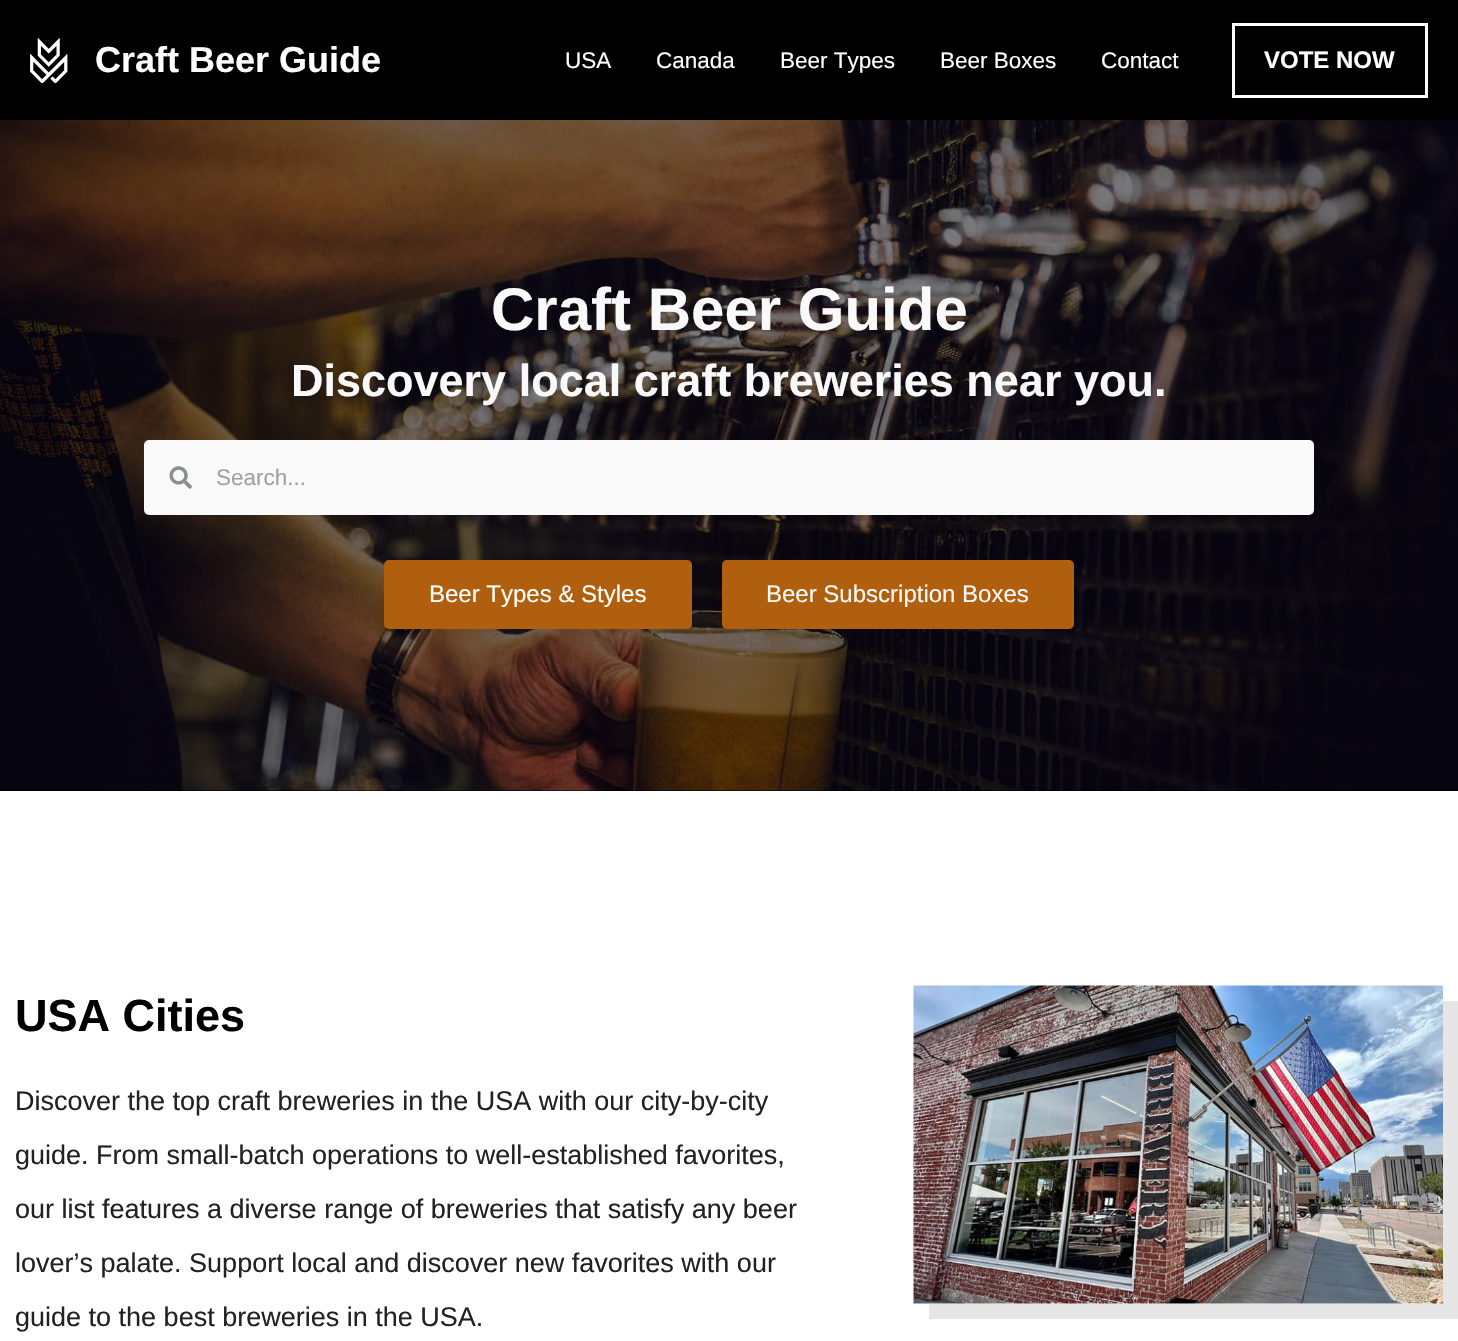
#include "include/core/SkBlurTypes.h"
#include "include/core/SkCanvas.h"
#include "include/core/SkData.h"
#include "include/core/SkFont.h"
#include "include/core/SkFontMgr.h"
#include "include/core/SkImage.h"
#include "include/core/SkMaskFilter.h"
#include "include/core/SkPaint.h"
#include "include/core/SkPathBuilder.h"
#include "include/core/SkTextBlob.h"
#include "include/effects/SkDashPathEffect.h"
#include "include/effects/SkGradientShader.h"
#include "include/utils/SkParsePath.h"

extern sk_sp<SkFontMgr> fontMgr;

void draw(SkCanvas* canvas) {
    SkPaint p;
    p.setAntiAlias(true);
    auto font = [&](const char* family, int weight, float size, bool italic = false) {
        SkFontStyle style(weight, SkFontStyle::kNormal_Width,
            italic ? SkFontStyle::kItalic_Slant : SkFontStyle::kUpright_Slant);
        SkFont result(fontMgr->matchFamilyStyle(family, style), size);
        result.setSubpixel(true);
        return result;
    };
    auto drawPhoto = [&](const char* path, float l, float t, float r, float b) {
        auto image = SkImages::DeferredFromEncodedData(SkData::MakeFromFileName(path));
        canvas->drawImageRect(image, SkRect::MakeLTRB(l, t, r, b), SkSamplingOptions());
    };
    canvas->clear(0xFFFFFFFF);
    p.setColor(0xFF000000);
    canvas->drawRect(SkRect::MakeLTRB(0, 0, 1458, 120), p);
    drawPhoto("media/1.png", 30, 38, 68, 83);
    auto font1 = font("Liberation Sans", 700, 36);
    p.setColor(0xFFFFFFFF);
    canvas->drawString("Craft Beer Guide", 95, 72, font1, p);
    auto font2 = font("Liberation Sans", 400, 22.5f);
    {
        const struct { const char* s; float x, y; } items[] = {
            {"USA", 565, 68},
            {"Canada", 656, 68},
            {"Beer Types", 780, 68},
            {"Beer Boxes", 940, 68},
            {"Contact", 1101, 68},
        };
        for (auto [s, x, y] : items) {
            canvas->drawString(s, x, y, font2, p);
        }
    }
    p.setStyle(SkPaint::kStroke_Style);
    p.setStrokeWidth(3);
    canvas->drawRect(SkRect::MakeLTRB(1233.5f, 24.5f, 1426.5f, 96.5f), p);
    auto font3 = font("Liberation Sans", 700, 24);
    p.setStyle(SkPaint::kFill_Style);
    canvas->drawString("VOTE NOW", 1264, 68, font3, p);
    p.setColor(0xFF000000);
    canvas->drawRect(SkRect::MakeLTRB(0, 790, 1458, 791), p);
    drawPhoto("media/2.png", 0, 120, 1458, 791);
    auto font4 = font("Liberation Sans", 700, 60);
    p.setColor(0xFFF9F9F9);
    canvas->drawString("Craft Beer Guide", 491, 330, font4, p);
    auto font5 = font("Liberation Sans", 700, 45);
    canvas->drawString("Discovery local craft breweries near you.", 291, 396, font5, p);
    canvas->drawRoundRect(SkRect::MakeLTRB(144, 440, 1314, 515), 5, 5, p);
    drawPhoto("media/3.png", 169, 466, 192, 489);
    p.setColor(0xFFA1A1A1);
    canvas->drawString("Search...", 216, 485, font2, p);
    p.setColor(0xFFB05F0E);
    canvas->drawRoundRect(SkRect::MakeLTRB(384, 560, 692, 629), 5, 5, p);
    auto font6 = font("Liberation Sans", 400, 24);
    p.setColor(0xFFFFFFFF);
    canvas->drawString("Beer Types & Styles", 429, 602, font6, p);
    p.setColor(0xFFB05F0E);
    canvas->drawRoundRect(SkRect::MakeLTRB(722, 560, 1074, 629), 5, 5, p);
    p.setColor(0xFFF9F9F9);
    canvas->drawString("Beer Subscription Boxes", 766, 602, font6, p);
    p.setColor(0xFF000000);
    canvas->drawString("USA Cities", 15, 1031, font5, p);
    auto font7 = font("Liberation Sans", 400, 27);
    p.setColor(0xFF222222);
    {
        const struct { const char* s; float x, y; } items[] = {
            {"Discover the top craft breweries in the USA with our city-by-city", 15, 1110},
            {"guide. From small-batch operations to well-established favorites,", 15, 1164},
            {"our list features a diverse range of breweries that satisfy any beer", 15, 1218},
            {"lover’s palate. Support local and discover new favorites with our", 15, 1272},
            {"guide to the best breweries in the USA.", 15, 1326},
        };
        for (auto [s, x, y] : items) {
            canvas->drawString(s, x, y, font7, p);
        }
    }
    p.setColor(0xFFE6E6E6);
    canvas->drawPath(SkPathBuilder().moveTo(929, 1304).lineTo(929, 1319).lineTo(1458, 1319).lineTo(1458, 1001).lineTo(1443, 1001).lineTo(1443, 1304).close().detach(), p);
    drawPhoto("media/4.png", 913, 985, 1443, 1304);
}
